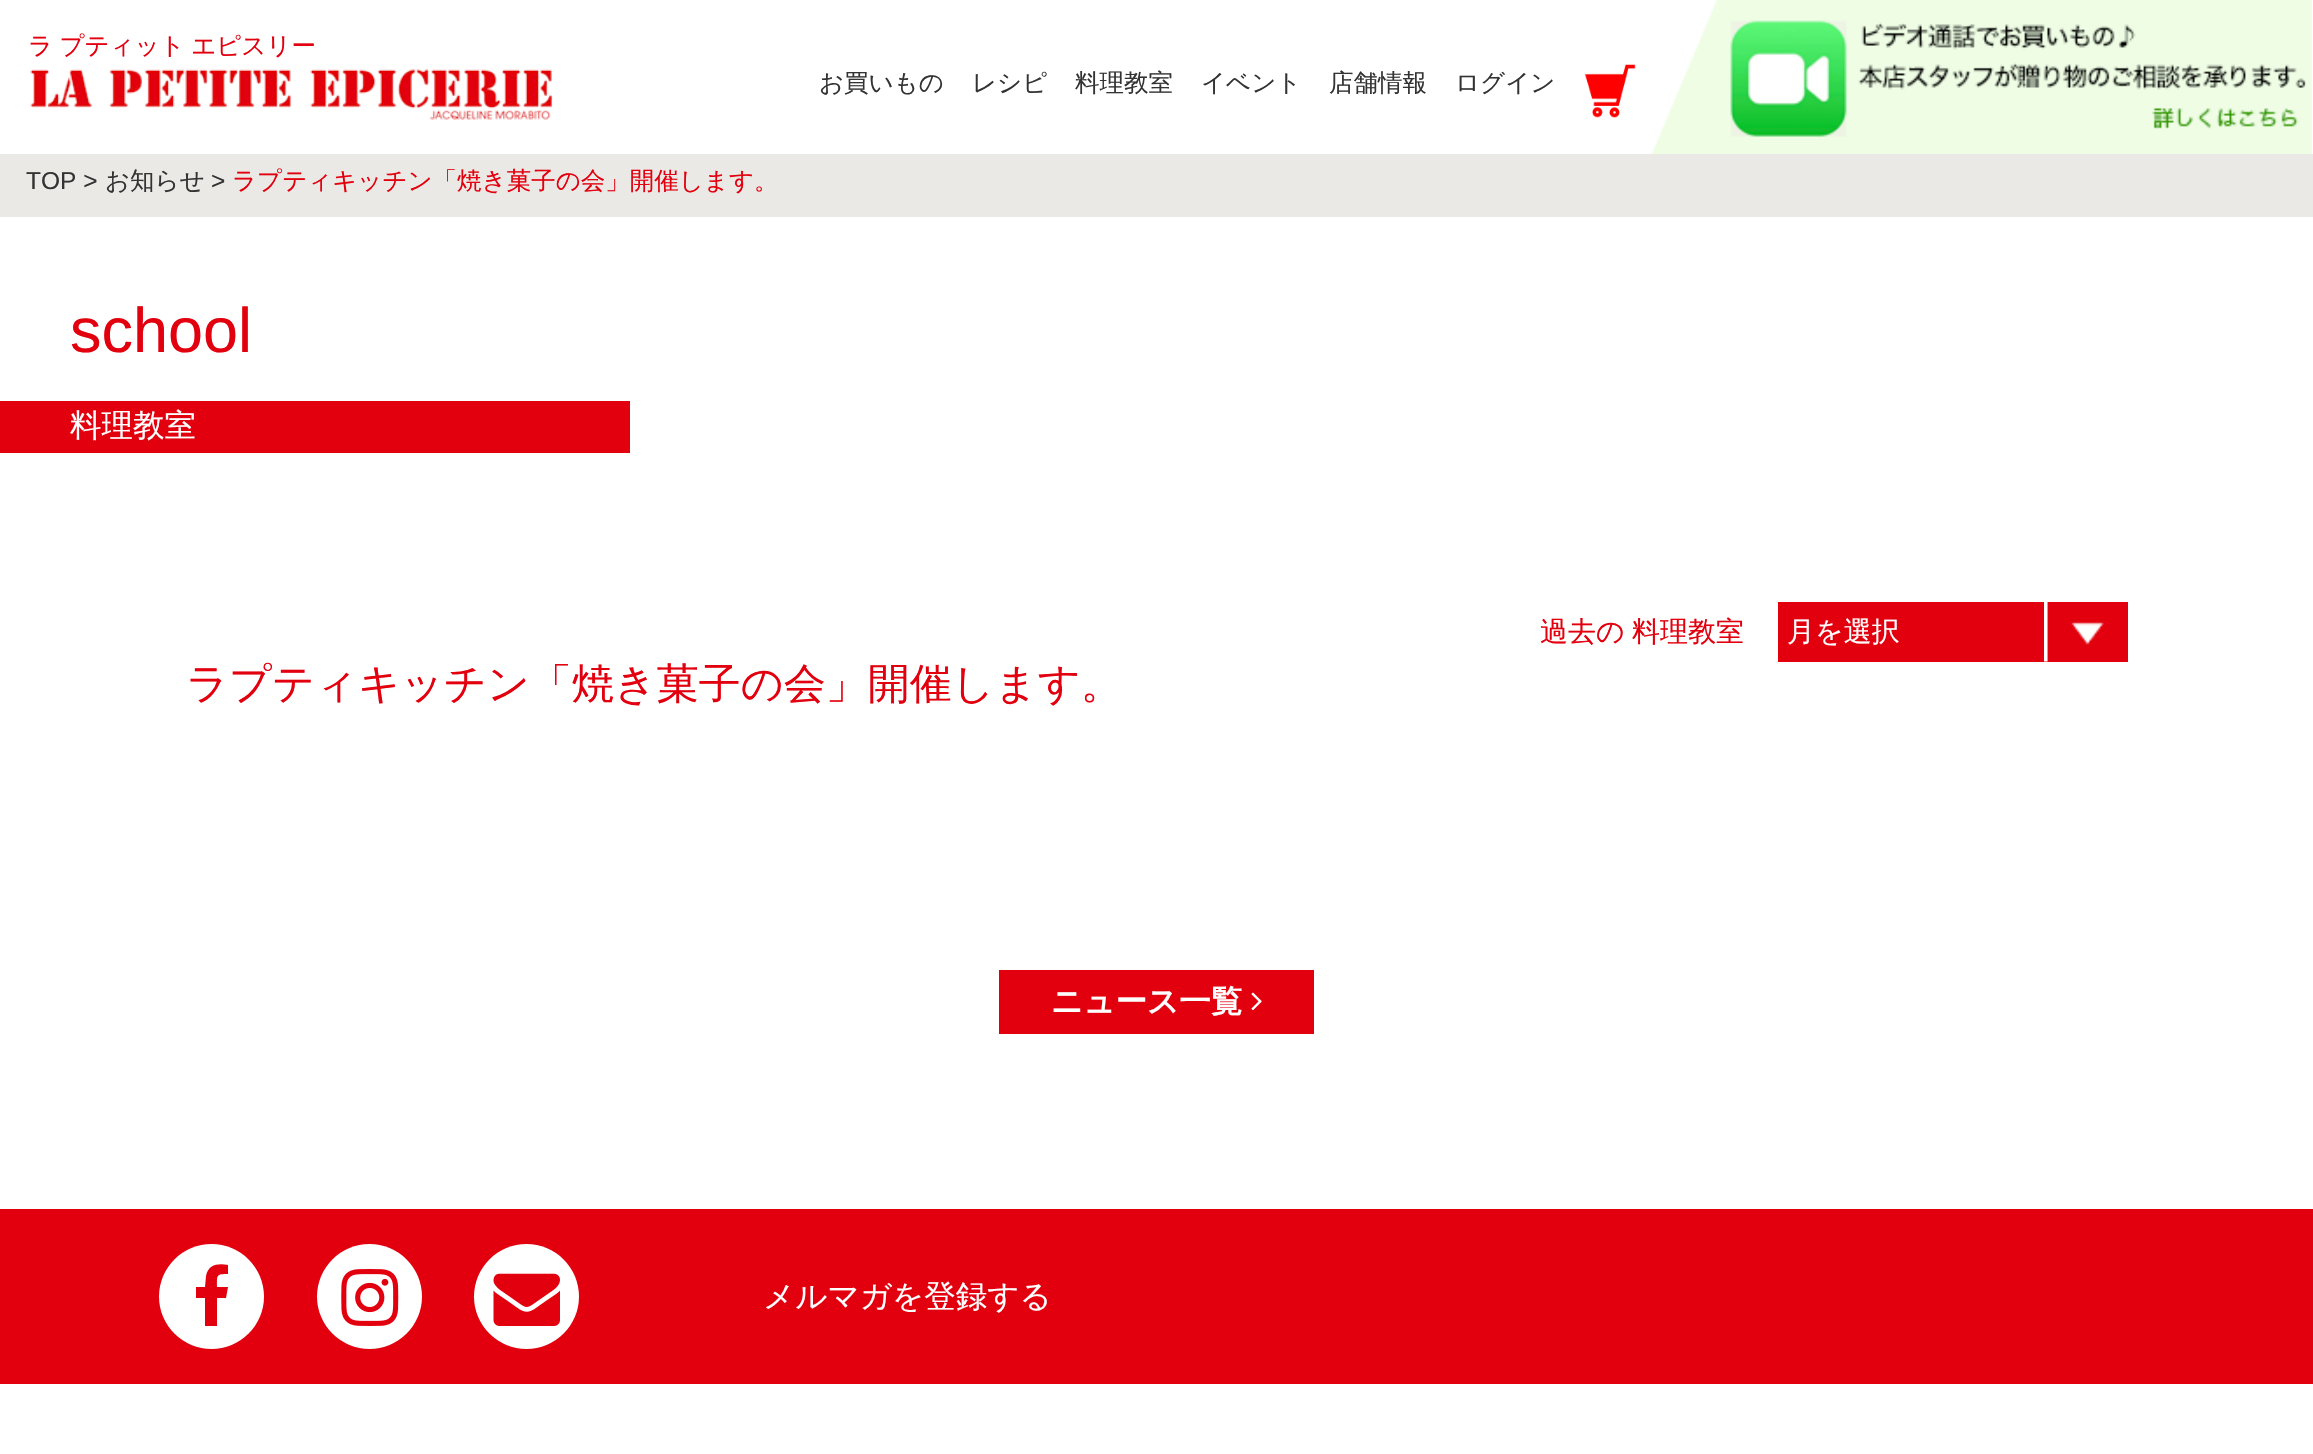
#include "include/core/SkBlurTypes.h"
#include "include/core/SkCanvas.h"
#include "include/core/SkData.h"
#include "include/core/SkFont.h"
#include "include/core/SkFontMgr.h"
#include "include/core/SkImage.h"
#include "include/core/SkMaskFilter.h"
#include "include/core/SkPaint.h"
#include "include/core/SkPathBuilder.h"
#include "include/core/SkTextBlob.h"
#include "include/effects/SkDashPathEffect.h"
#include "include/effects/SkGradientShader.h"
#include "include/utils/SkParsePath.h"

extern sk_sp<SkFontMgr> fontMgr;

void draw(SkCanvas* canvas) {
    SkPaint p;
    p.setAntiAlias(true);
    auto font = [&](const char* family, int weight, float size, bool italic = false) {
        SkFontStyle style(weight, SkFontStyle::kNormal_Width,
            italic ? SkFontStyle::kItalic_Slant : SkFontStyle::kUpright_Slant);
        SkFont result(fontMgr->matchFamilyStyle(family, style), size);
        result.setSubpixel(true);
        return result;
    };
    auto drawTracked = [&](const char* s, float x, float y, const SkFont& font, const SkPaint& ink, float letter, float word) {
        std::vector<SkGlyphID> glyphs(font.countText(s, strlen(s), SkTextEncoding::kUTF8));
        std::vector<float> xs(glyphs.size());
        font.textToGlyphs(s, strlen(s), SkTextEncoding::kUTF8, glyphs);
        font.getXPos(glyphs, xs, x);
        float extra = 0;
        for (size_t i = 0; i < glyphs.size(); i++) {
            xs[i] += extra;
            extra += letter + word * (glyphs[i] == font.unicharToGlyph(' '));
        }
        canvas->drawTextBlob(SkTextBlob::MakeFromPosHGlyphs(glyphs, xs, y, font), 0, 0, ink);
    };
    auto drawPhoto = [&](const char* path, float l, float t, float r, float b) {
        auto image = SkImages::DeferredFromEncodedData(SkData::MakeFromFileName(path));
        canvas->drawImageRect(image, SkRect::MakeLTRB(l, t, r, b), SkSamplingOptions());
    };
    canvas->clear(0xFFFFFFFF);
    auto font1 = font("WenQuanYi Zen Hei", 500, 24.5f);
    p.setColor(0xFFE3000E);
    drawTracked("ラ プティット エピスリー", 28, 54, font1, p, 0, -1);
    drawPhoto("media/1.png", 30, 69, 553, 120);
    p.setColor(0xFF333333);
    {
        const struct { const char* s; float x, y; } items[] = {
            {"お買いもの", 819, 91},
            {"レシピ", 972, 91},
            {"料理教室", 1075, 91},
            {"イベント", 1201, 91},
            {"店舗情報", 1329, 91},
            {"ログイン", 1455, 91},
        };
        for (auto [s, x, y] : items) {
            canvas->drawString(s, x, y, font1, p);
        }
    }
    drawPhoto("media/2.png", 1584, 64, 1636, 118);
    drawPhoto("media/3.png", 1651, 0, 2312, 154);
    p.setColor(0xFFEBE9E6);
    canvas->drawRect(SkRect::MakeLTRB(0, 154, 2313, 217), p);
    auto font2 = font("Liberation Sans", 400, 24.5f);
    p.setColor(0xFF333333);
    canvas->drawString("TOP >", 26, 189, font2, p);
    canvas->drawString("お知らせ", 105, 189, font1, p);
    canvas->drawString(">", 211, 189, font2, p);
    p.setColor(0xFFE3000E);
    canvas->drawString("ラプティキッチン「焼き菓子の会」開催します。", 232, 189, font1, p);
    auto font3 = font("Liberation Sans", 400, 63);
    canvas->drawString("school", 70, 352, font3, p);
    canvas->drawRect(SkRect::MakeLTRB(0, 401, 630, 453), p);
    auto font4 = font("WenQuanYi Zen Hei", 500, 31.5f);
    p.setColor(0xFFFFFFFF);
    canvas->drawString("料理教室", 70, 436, font4, p);
    auto font5 = font("WenQuanYi Zen Hei", 500, 28);
    p.setColor(0xFFE3000E);
    canvas->drawString("過去の", 1540, 641, font5, p);
    canvas->drawString("料理教室", 1632, 641, font5, p);
    canvas->drawRect(SkRect::MakeLTRB(1778, 602, 2128, 662), p);
    drawPhoto("media/4.png", 2044, 602, 2104, 662);
    p.setColor(0xFFFFFFFF);
    canvas->drawString("月を選択", 1787, 641, font5, p);
    auto font6 = font("WenQuanYi Zen Hei", 500, 42);
    p.setColor(0xFFE3000E);
    canvas->drawString("ラプティキッチン「焼き菓子の会」開催します。", 186, 698, font6, p);
    canvas->drawRect(SkRect::MakeLTRB(999, 970, 1314, 1034), p);
    auto font7 = font("WenQuanYi Zen Hei", 700, 31.5f);
    p.setColor(0xFFFFFFFF);
    canvas->drawString("ニュース一覧", 1051, 1012, font7, p);
    drawPhoto("media/5.png", 1251, 992, 1262, 1011);
    p.setColor(0xFFE3000E);
    canvas->drawRect(SkRect::MakeLTRB(0, 1209, 2313, 1384), p);
    p.setColor(0xFFFFFFFF);
    canvas->drawCircle(211.5f, 1296.5f, 52.5f, p);
    p.setColor(0xFFE3000E);
    canvas->drawPath(SkPathBuilder().moveTo(228, 1265).lineTo(228, 1274).cubicTo(216, 1274, 217, 1275, 217, 1287).lineTo(228, 1287).lineTo(226, 1298).lineTo(217, 1298).lineTo(217, 1326).lineTo(205, 1326).lineTo(205, 1298).lineTo(196, 1298).lineTo(196, 1287).lineTo(205, 1287).lineTo(206, 1276).cubicTo(208, 1264, 219, 1263, 228, 1265).close().detach(), p);
    p.setColor(0xFFFFFFFF);
    canvas->drawCircle(369.5f, 1296.5f, 52.5f, p);
    drawPhoto("media/6.png", 341, 1269, 399, 1326);
    canvas->drawCircle(526.5f, 1296.5f, 52.5f, p);
    drawPhoto("media/7.png", 493, 1273, 560, 1326);
    canvas->drawString("メルマガを登録する", 763, 1307, font4, p);
}
